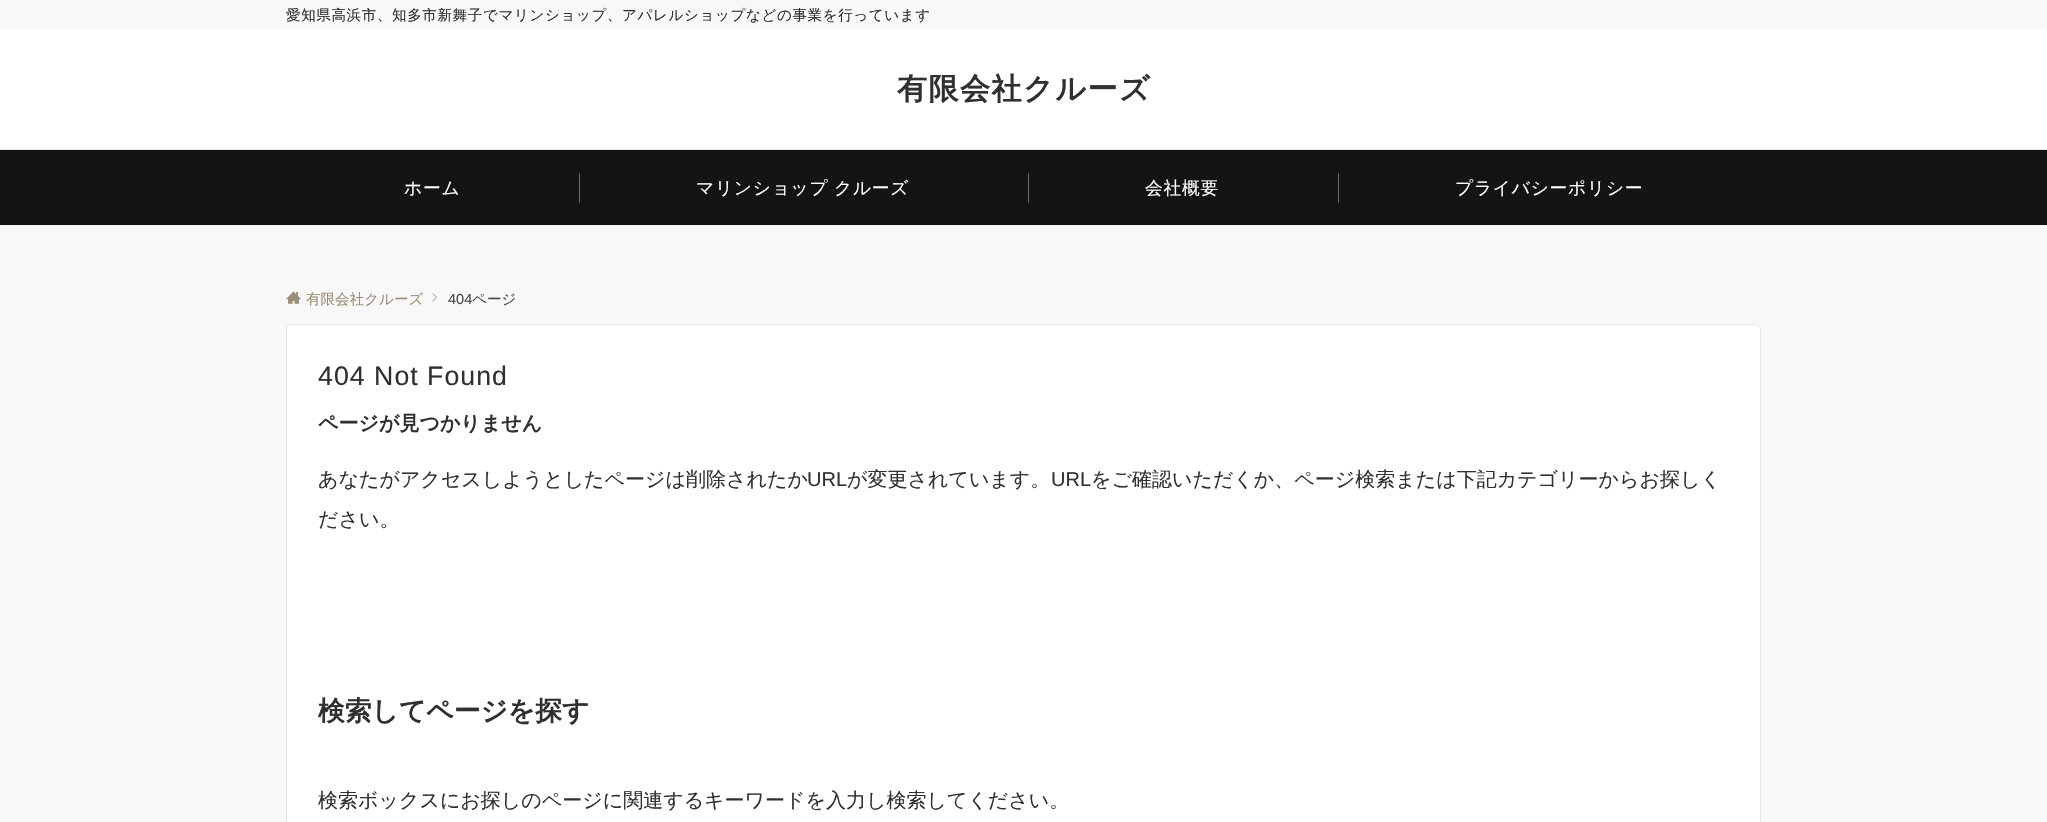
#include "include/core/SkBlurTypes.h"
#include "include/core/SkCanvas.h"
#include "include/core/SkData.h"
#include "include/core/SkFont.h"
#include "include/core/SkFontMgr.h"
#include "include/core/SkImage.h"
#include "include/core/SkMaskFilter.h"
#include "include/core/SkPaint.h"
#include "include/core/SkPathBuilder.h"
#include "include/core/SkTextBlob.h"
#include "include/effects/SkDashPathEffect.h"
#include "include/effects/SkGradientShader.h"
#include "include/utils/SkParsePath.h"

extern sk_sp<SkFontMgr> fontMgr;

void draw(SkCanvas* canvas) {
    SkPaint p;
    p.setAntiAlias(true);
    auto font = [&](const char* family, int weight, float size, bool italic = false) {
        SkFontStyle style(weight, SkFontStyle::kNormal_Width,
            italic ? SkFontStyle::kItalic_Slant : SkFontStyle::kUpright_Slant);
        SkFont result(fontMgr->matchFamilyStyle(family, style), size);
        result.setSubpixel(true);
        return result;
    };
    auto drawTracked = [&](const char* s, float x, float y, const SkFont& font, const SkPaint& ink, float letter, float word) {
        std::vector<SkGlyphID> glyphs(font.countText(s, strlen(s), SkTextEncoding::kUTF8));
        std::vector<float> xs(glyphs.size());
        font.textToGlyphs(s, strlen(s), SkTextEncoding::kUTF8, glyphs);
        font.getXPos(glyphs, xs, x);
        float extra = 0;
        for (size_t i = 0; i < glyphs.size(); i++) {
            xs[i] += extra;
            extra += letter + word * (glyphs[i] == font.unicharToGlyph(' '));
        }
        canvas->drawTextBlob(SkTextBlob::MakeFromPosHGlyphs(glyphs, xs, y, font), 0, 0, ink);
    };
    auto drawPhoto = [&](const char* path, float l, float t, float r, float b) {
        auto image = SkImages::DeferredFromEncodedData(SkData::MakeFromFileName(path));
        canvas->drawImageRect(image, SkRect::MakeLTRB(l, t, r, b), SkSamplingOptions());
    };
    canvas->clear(0xFFF8F8F8);
    auto font1 = font("WenQuanYi Zen Hei", 500, 14.55f);
    p.setColor(0xFF303030);
    drawTracked("愛知県高浜市、知多市新舞子でマリンショップ、アパレルショップなどの事業を行っています", 286, 20, font1, p, 0.6f, 0);
    p.setColor(0xFFFFFFFF);
    canvas->drawRect(SkRect::MakeLTRB(0, 29, 2047, 149), p);
    p.setColor(0xFFE6E6E6);
    canvas->drawRect(SkRect::MakeLTRB(0, 149, 2047, 150), p);
    auto font2 = font("WenQuanYi Zen Hei", 700, 30);
    p.setColor(0xFF303030);
    drawTracked("有限会社クルーズ", 897, 99, font2, p, 1.5f, 0);
    p.setColor(0xFF141414);
    canvas->drawRect(SkRect::MakeLTRB(0, 150, 2047, 225), p);
    auto font3 = font("WenQuanYi Zen Hei", 500, 17.75f);
    p.setColor(0xFFFFFFFF);
    drawTracked("ホーム", 404, 194, font3, p, 0.75f, 0);
    p.setColor(0xFF6C6C6C);
    canvas->drawRect(SkRect::MakeLTRB(579, 173, 580, 203), p);
    p.setColor(0xFFFFFFFF);
    drawTracked("マリンショップ", 696, 194, font3, p, 0.75f, 0);
    drawTracked("クルーズ", 834, 194, font3, p, 0.75f, 0);
    p.setColor(0xFF6C6C6C);
    canvas->drawRect(SkRect::MakeLTRB(1028, 173, 1029, 203), p);
    p.setColor(0xFFFFFFFF);
    drawTracked("会社概要", 1145, 194, font3, p, 0.75f, 0);
    p.setColor(0xFF6C6C6C);
    canvas->drawRect(SkRect::MakeLTRB(1338, 173, 1339, 203), p);
    p.setColor(0xFFFFFFFF);
    drawTracked("プライバシーポリシー", 1455, 194, font3, p, 0.75f, 0);
    drawPhoto("media/1.png", 286, 291, 301, 304);
    p.setColor(0xFF9B8D77);
    canvas->drawString("有限会社クルーズ", 306, 304, font1, p);
    drawPhoto("media/2.png", 432, 293, 438, 302);
    auto font4 = font("Liberation Sans", 400, 14.55f);
    p.setColor(0xFF484848);
    canvas->drawString("404", 448, 304, font4, p);
    canvas->drawString("ページ", 472, 304, font1, p);
    p.setColor(0xFFFFFFFF);
    canvas->drawRoundRect(SkRect::MakeLTRB(286.5f, 324.5f, 1760.5f, 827.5f), 4.5f, 4.5f, p);
    p.setStyle(SkPaint::kStroke_Style);
    p.setStrokeWidth(1);
    p.setColor(0xFFE5E7E8);
    canvas->drawRoundRect(SkRect::MakeLTRB(286.5f, 324.5f, 1760.5f, 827.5f), 4.5f, 4.5f, p);
    auto font5 = font("Liberation Sans", 400, 26.75f);
    p.setStyle(SkPaint::kFill_Style);
    p.setColor(0xFF303030);
    drawTracked("404 Not Found", 318, 385, font5, p, 1, 0);
    auto font6 = font("WenQuanYi Zen Hei", 700, 20);
    canvas->drawString("ページが見つかりません", 318, 430, font6, p);
    auto font7 = font("WenQuanYi Zen Hei", 500, 20);
    canvas->drawString("あなたがアクセスしようとしたページは削除されたか", 318, 486, font7, p);
    auto font8 = font("Liberation Sans", 400, 20);
    canvas->drawString("URL", 807, 486, font8, p);
    canvas->drawString("が変更されています。", 847, 486, font7, p);
    canvas->drawString("URL", 1051, 486, font8, p);
    canvas->drawString("をご確認いただくか、ページ検索または下記カテゴリーからお探しく", 1091, 486, font7, p);
    canvas->drawString("ださい。", 318, 526, font7, p);
    auto font9 = font("WenQuanYi Zen Hei", 700, 26.75f);
    canvas->drawString("検索してページを探す", 318, 720, font9, p);
    canvas->drawString("検索ボックスにお探しのページに関連するキーワードを入力し検索してください。", 318, 807, font7, p);
}
